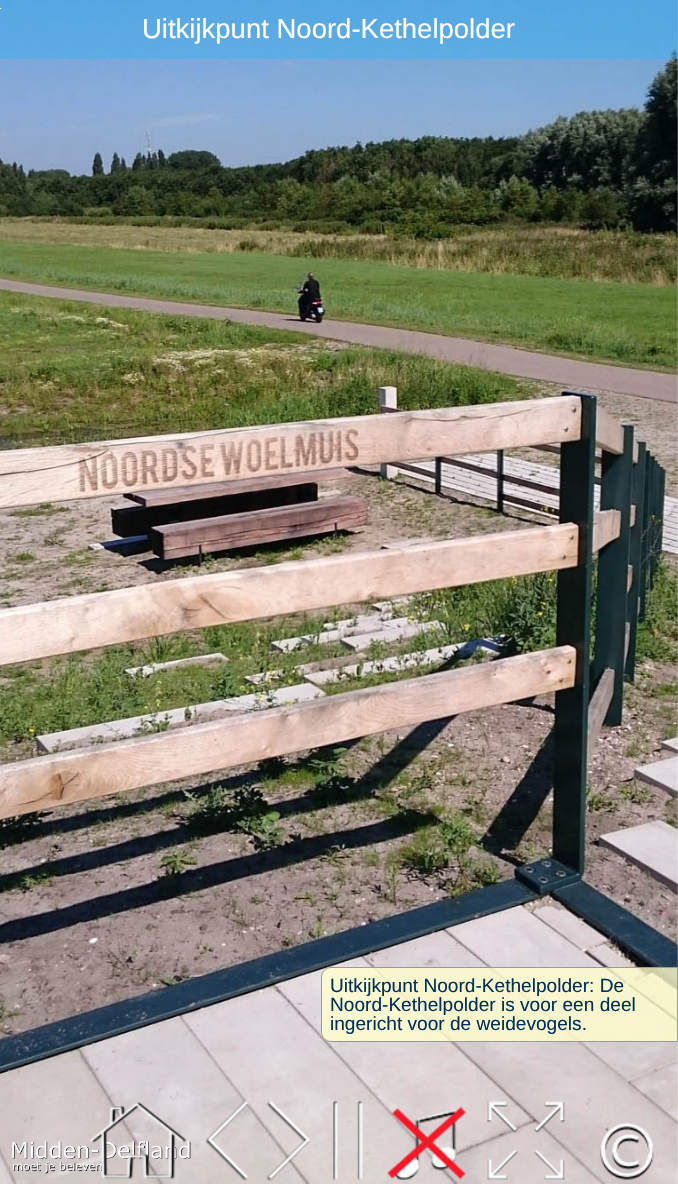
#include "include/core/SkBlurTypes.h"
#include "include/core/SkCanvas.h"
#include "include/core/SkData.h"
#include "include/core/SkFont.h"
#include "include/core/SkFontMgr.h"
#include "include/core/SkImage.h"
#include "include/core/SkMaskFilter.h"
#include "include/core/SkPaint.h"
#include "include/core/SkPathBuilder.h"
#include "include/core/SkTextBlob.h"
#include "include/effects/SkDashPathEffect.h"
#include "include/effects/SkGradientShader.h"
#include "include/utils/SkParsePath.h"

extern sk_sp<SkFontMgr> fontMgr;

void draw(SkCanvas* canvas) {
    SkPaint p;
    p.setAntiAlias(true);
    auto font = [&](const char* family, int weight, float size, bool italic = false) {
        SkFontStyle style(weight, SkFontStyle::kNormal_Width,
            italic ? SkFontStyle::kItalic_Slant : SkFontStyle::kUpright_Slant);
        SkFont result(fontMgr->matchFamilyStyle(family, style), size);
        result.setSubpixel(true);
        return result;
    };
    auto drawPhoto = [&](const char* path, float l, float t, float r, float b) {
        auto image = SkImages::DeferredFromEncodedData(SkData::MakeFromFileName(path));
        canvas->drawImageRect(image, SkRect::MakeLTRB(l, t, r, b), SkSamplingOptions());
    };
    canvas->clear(0xFFFFFFFF);
    drawPhoto("media/1.png", 0, 0, 678, 1184);
    p.setColor(0x662FB4F5);
    canvas->drawRect(SkRect::MakeLTRB(0, 0, 678, 59), p);
    p.setColor(0xFFFFFFFF);
    canvas->drawRect(SkRect::MakeLTRB(0, 8, 1, 9), p);
    auto font1 = font("Liberation Sans", 400, 27.5f);
    canvas->drawString("Uitkijkpunt Noord-Kethelpolder", 142, 38, font1, p);
    drawPhoto("media/2.png", 321, 967, 677, 1042);
    p.setStyle(SkPaint::kStroke_Style);
    p.setStrokeWidth(1);
    p.setColor(0xFF999999);
    canvas->drawPath(SkPathBuilder().moveTo(331, 967.5f).lineTo(677.5f, 967.5f).lineTo(677.5f, 1041.5f).lineTo(331, 1041.5f).cubicTo(326, 1041.5f, 321.5f, 1037, 321.5f, 1032).lineTo(321.5f, 977).cubicTo(321.5f, 972, 326, 967.5f, 331, 967.5f).close().detach(), p);
    auto font2 = font("Liberation Sans", 400, 19.1f);
    p.setStyle(SkPaint::kFill_Style);
    p.setColor(0xFF022E5A);
    {
        const struct { const char* s; float x, y; } items[] = {
            {"Uitkijkpunt Noord-Kethelpolder: De", 330, 992},
            {"Noord-Kethelpolder is voor een deel", 330, 1011},
            {"ingericht voor de weidevogels.", 330, 1030},
        };
        for (auto [s, x, y] : items) {
            canvas->drawString(s, x, y, font2, p);
        }
    }
    drawPhoto("media/10.png", 12, 1141, 191, 1174);
    drawPhoto("media/3.png", 89, 1102, 186, 1180);
    drawPhoto("media/4.png", 205, 1100, 248, 1181);
    drawPhoto("media/5.png", 266, 1100, 310, 1181);
    drawPhoto("media/6.png", 333, 1101, 363, 1180);
    drawPhoto("media/7.png", 387, 1106, 467, 1180);
    drawPhoto("media/8.png", 487, 1101, 565, 1180);
    drawPhoto("media/9.png", 600, 1122, 654, 1180);
}
